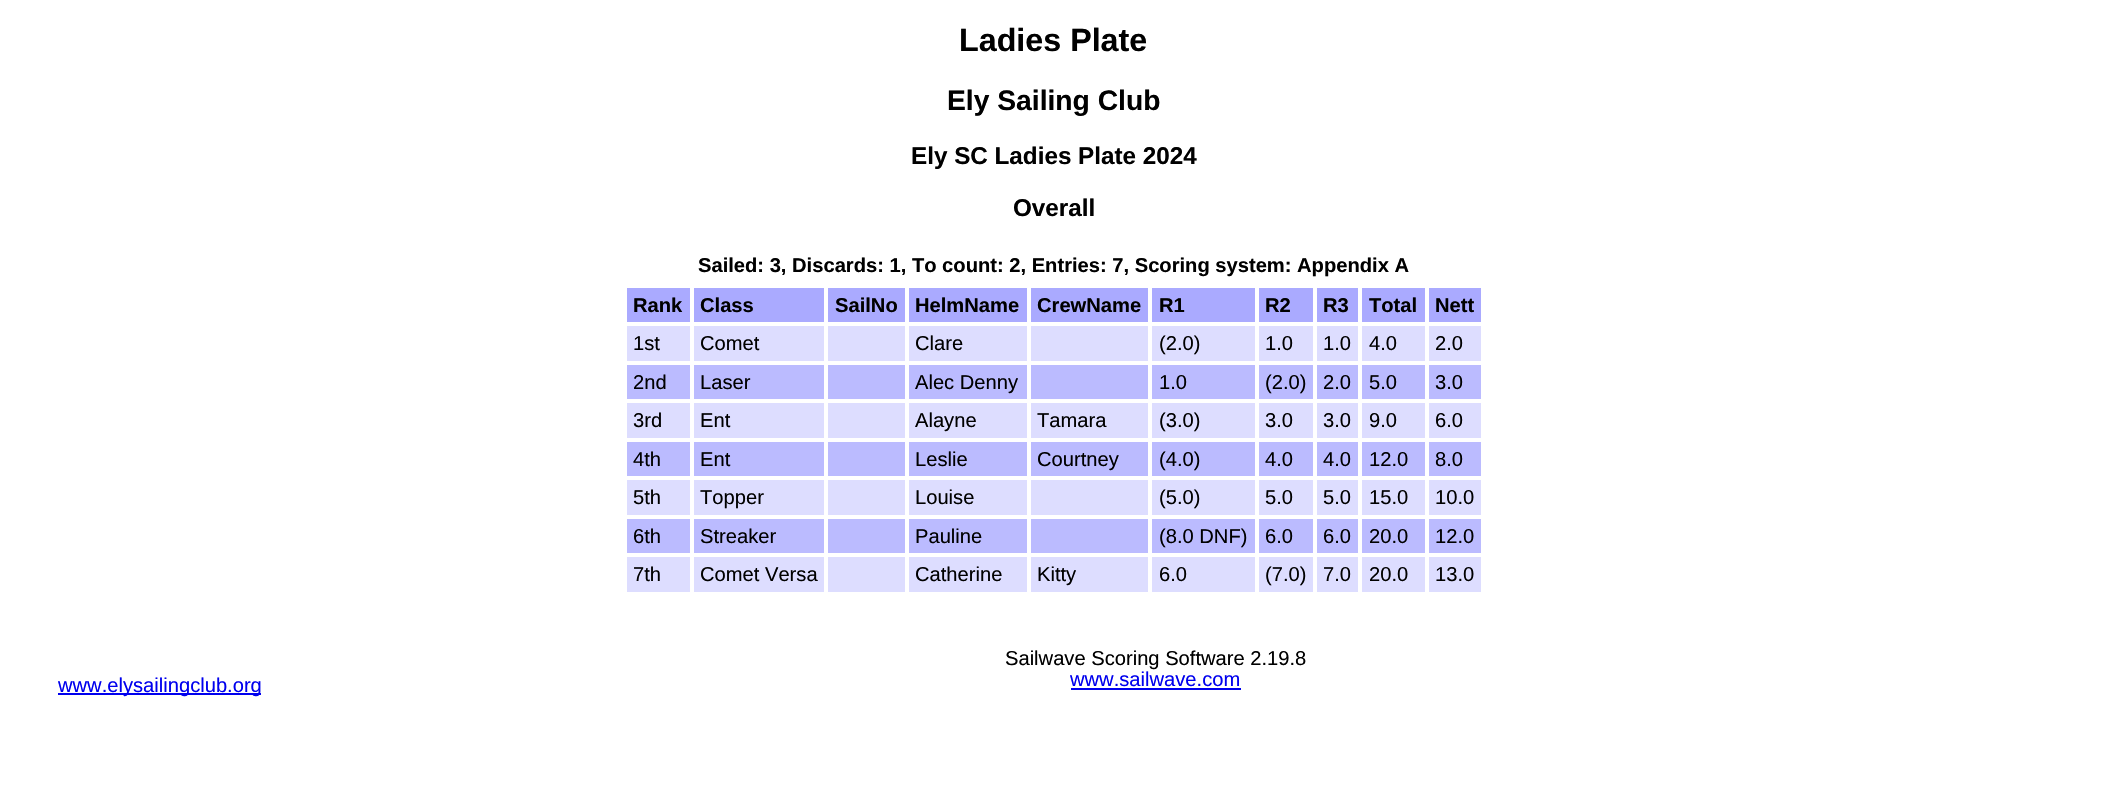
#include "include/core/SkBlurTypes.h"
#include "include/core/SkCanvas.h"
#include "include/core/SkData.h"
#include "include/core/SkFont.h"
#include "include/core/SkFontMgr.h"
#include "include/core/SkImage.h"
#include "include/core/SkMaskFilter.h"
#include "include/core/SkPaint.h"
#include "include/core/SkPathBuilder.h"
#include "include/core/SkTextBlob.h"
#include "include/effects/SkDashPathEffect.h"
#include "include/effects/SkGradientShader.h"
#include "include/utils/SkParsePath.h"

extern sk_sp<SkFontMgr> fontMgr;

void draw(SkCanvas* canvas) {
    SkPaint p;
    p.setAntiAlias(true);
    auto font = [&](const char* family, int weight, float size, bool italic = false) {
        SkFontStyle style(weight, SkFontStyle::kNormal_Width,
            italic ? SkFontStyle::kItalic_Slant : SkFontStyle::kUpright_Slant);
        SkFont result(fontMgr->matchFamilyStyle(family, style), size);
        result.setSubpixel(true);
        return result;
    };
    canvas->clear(0xFFFFFFFF);
    auto font1 = font("Liberation Sans", 700, 32.25f);
    p.setColor(0xFF000000);
    canvas->drawString("Ladies Plate", 959, 51, font1, p);
    auto font2 = font("Liberation Sans", 700, 28.25f);
    canvas->drawString("Ely Sailing Club", 947, 110, font2, p);
    auto font3 = font("Liberation Sans", 700, 24.25f);
    canvas->drawString("Ely SC Ladies Plate 2024", 911, 164, font3, p);
    canvas->drawString("Overall", 1013, 216, font3, p);
    auto font4 = font("Liberation Sans", 700, 20.15f);
    canvas->drawString("Sailed: 3, Discards: 1, To count: 2, Entries: 7, Scoring system: Appendix A", 698, 272, font4, p);
    p.setColor(0xFFAAAAFF);
    canvas->drawRect(SkRect::MakeLTRB(627, 288, 690, 322), p);
    p.setColor(0xFF000000);
    canvas->drawString("Rank", 633, 312, font4, p);
    p.setColor(0xFFAAAAFF);
    canvas->drawRect(SkRect::MakeLTRB(694, 288, 824, 322), p);
    p.setColor(0xFF000000);
    canvas->drawString("Class", 700, 312, font4, p);
    p.setColor(0xFFAAAAFF);
    canvas->drawRect(SkRect::MakeLTRB(828, 288, 905, 322), p);
    p.setColor(0xFF000000);
    canvas->drawString("SailNo", 835, 312, font4, p);
    p.setColor(0xFFAAAAFF);
    canvas->drawRect(SkRect::MakeLTRB(909, 288, 1027, 322), p);
    p.setColor(0xFF000000);
    canvas->drawString("HelmName", 915, 312, font4, p);
    p.setColor(0xFFAAAAFF);
    canvas->drawRect(SkRect::MakeLTRB(1031, 288, 1148, 322), p);
    p.setColor(0xFF000000);
    canvas->drawString("CrewName", 1037, 312, font4, p);
    p.setColor(0xFFAAAAFF);
    canvas->drawRect(SkRect::MakeLTRB(1152, 288, 1255, 322), p);
    p.setColor(0xFF000000);
    canvas->drawString("R1", 1159, 312, font4, p);
    p.setColor(0xFFAAAAFF);
    canvas->drawRect(SkRect::MakeLTRB(1259, 288, 1313, 322), p);
    p.setColor(0xFF000000);
    canvas->drawString("R2", 1265, 312, font4, p);
    p.setColor(0xFFAAAAFF);
    canvas->drawRect(SkRect::MakeLTRB(1317, 288, 1358, 322), p);
    p.setColor(0xFF000000);
    canvas->drawString("R3", 1323, 312, font4, p);
    p.setColor(0xFFAAAAFF);
    canvas->drawRect(SkRect::MakeLTRB(1362, 288, 1425, 322), p);
    p.setColor(0xFF000000);
    canvas->drawString("Total", 1369, 312, font4, p);
    p.setColor(0xFFAAAAFF);
    canvas->drawRect(SkRect::MakeLTRB(1429, 288, 1481, 322), p);
    p.setColor(0xFF000000);
    canvas->drawString("Nett", 1435, 312, font4, p);
    p.setColor(0xFFDDDDFF);
    canvas->drawRect(SkRect::MakeLTRB(627, 326, 1481, 361), p);
    auto font5 = font("Liberation Sans", 400, 20.15f);
    p.setColor(0xFF000000);
    {
        const struct { const char* s; float x, y; } items[] = {
            {"1st", 633, 350},
            {"Comet", 700, 350},
            {"Clare", 915, 350},
            {"(2.0)", 1159, 350},
            {"1.0", 1265, 350},
            {"1.0", 1323, 350},
            {"4.0", 1369, 350},
            {"2.0", 1435, 350},
        };
        for (auto [s, x, y] : items) {
            canvas->drawString(s, x, y, font5, p);
        }
    }
    p.setColor(0xFFBBBBFF);
    canvas->drawRect(SkRect::MakeLTRB(627, 365, 1481, 399), p);
    p.setColor(0xFF000000);
    {
        const struct { const char* s; float x, y; } items[] = {
            {"2nd", 633, 389},
            {"Laser", 700, 389},
            {"Alec Denny", 915, 389},
            {"1.0", 1159, 389},
            {"(2.0)", 1265, 389},
            {"2.0", 1323, 389},
            {"5.0", 1369, 389},
            {"3.0", 1435, 389},
        };
        for (auto [s, x, y] : items) {
            canvas->drawString(s, x, y, font5, p);
        }
    }
    p.setColor(0xFFDDDDFF);
    canvas->drawRect(SkRect::MakeLTRB(627, 403, 1481, 438), p);
    p.setColor(0xFF000000);
    {
        const struct { const char* s; float x, y; } items[] = {
            {"3rd", 633, 427},
            {"Ent", 700, 427},
            {"Alayne", 915, 427},
            {"Tamara", 1037, 427},
            {"(3.0)", 1159, 427},
            {"3.0", 1265, 427},
            {"3.0", 1323, 427},
            {"9.0", 1369, 427},
            {"6.0", 1435, 427},
        };
        for (auto [s, x, y] : items) {
            canvas->drawString(s, x, y, font5, p);
        }
    }
    p.setColor(0xFFBBBBFF);
    canvas->drawRect(SkRect::MakeLTRB(627, 442, 1481, 476), p);
    p.setColor(0xFF000000);
    {
        const struct { const char* s; float x, y; } items[] = {
            {"4th", 633, 466},
            {"Ent", 700, 466},
            {"Leslie", 915, 466},
            {"Courtney", 1037, 466},
            {"(4.0)", 1159, 466},
            {"4.0", 1265, 466},
            {"4.0", 1323, 466},
            {"12.0", 1369, 466},
            {"8.0", 1435, 466},
        };
        for (auto [s, x, y] : items) {
            canvas->drawString(s, x, y, font5, p);
        }
    }
    p.setColor(0xFFDDDDFF);
    canvas->drawRect(SkRect::MakeLTRB(627, 480, 1481, 515), p);
    p.setColor(0xFF000000);
    {
        const struct { const char* s; float x, y; } items[] = {
            {"5th", 633, 504},
            {"Topper", 700, 504},
            {"Louise", 915, 504},
            {"(5.0)", 1159, 504},
            {"5.0", 1265, 504},
            {"5.0", 1323, 504},
            {"15.0", 1369, 504},
            {"10.0", 1435, 504},
        };
        for (auto [s, x, y] : items) {
            canvas->drawString(s, x, y, font5, p);
        }
    }
    p.setColor(0xFFBBBBFF);
    canvas->drawRect(SkRect::MakeLTRB(627, 519, 1481, 553), p);
    p.setColor(0xFF000000);
    {
        const struct { const char* s; float x, y; } items[] = {
            {"6th", 633, 543},
            {"Streaker", 700, 543},
            {"Pauline", 915, 543},
            {"(8.0 DNF)", 1159, 543},
            {"6.0", 1265, 543},
            {"6.0", 1323, 543},
            {"20.0", 1369, 543},
            {"12.0", 1435, 543},
        };
        for (auto [s, x, y] : items) {
            canvas->drawString(s, x, y, font5, p);
        }
    }
    p.setColor(0xFFDDDDFF);
    canvas->drawRect(SkRect::MakeLTRB(627, 557, 1481, 592), p);
    p.setColor(0xFF000000);
    canvas->drawString("7th", 633, 581, font5, p);
    p.setColor(0xFFFFFFFF);
    canvas->drawRect(SkRect::MakeLTRB(690, 322, 694, 595), p);
    p.setColor(0xFF000000);
    canvas->drawString("Comet Versa", 700, 581, font5, p);
    p.setColor(0xFFFFFFFF);
    canvas->drawRect(SkRect::MakeLTRB(824, 322, 828, 595), p);
    canvas->drawRect(SkRect::MakeLTRB(905, 322, 909, 595), p);
    p.setColor(0xFF000000);
    canvas->drawString("Catherine", 915, 581, font5, p);
    p.setColor(0xFFFFFFFF);
    canvas->drawRect(SkRect::MakeLTRB(1027, 322, 1031, 595), p);
    p.setColor(0xFF000000);
    canvas->drawString("Kitty", 1037, 581, font5, p);
    p.setColor(0xFFFFFFFF);
    canvas->drawRect(SkRect::MakeLTRB(1148, 322, 1152, 595), p);
    p.setColor(0xFF000000);
    canvas->drawString("6.0", 1159, 581, font5, p);
    p.setColor(0xFFFFFFFF);
    canvas->drawRect(SkRect::MakeLTRB(1255, 322, 1259, 595), p);
    p.setColor(0xFF000000);
    canvas->drawString("(7.0)", 1265, 581, font5, p);
    p.setColor(0xFFFFFFFF);
    canvas->drawRect(SkRect::MakeLTRB(1313, 322, 1317, 595), p);
    p.setColor(0xFF000000);
    canvas->drawString("7.0", 1323, 581, font5, p);
    p.setColor(0xFFFFFFFF);
    canvas->drawRect(SkRect::MakeLTRB(1358, 322, 1362, 595), p);
    p.setColor(0xFF000000);
    canvas->drawString("20.0", 1369, 581, font5, p);
    p.setColor(0xFFFFFFFF);
    canvas->drawRect(SkRect::MakeLTRB(1425, 322, 1429, 595), p);
    p.setColor(0xFF000000);
    canvas->drawString("13.0", 1435, 581, font5, p);
    p.setColor(0xFF0000EE);
    canvas->drawRect(SkRect::MakeLTRB(58, 693, 261, 695), p);
    canvas->drawString("www.elysailingclub.org", 58, 692, font5, p);
    p.setColor(0xFF000000);
    canvas->drawString("Sailwave Scoring Software 2.19.8", 1005, 665, font5, p);
    p.setColor(0xFF0000EE);
    canvas->drawString("www.sailwave.com", 1070, 686, font5, p);
    canvas->drawRect(SkRect::MakeLTRB(1071, 688, 1241, 690), p);
}
